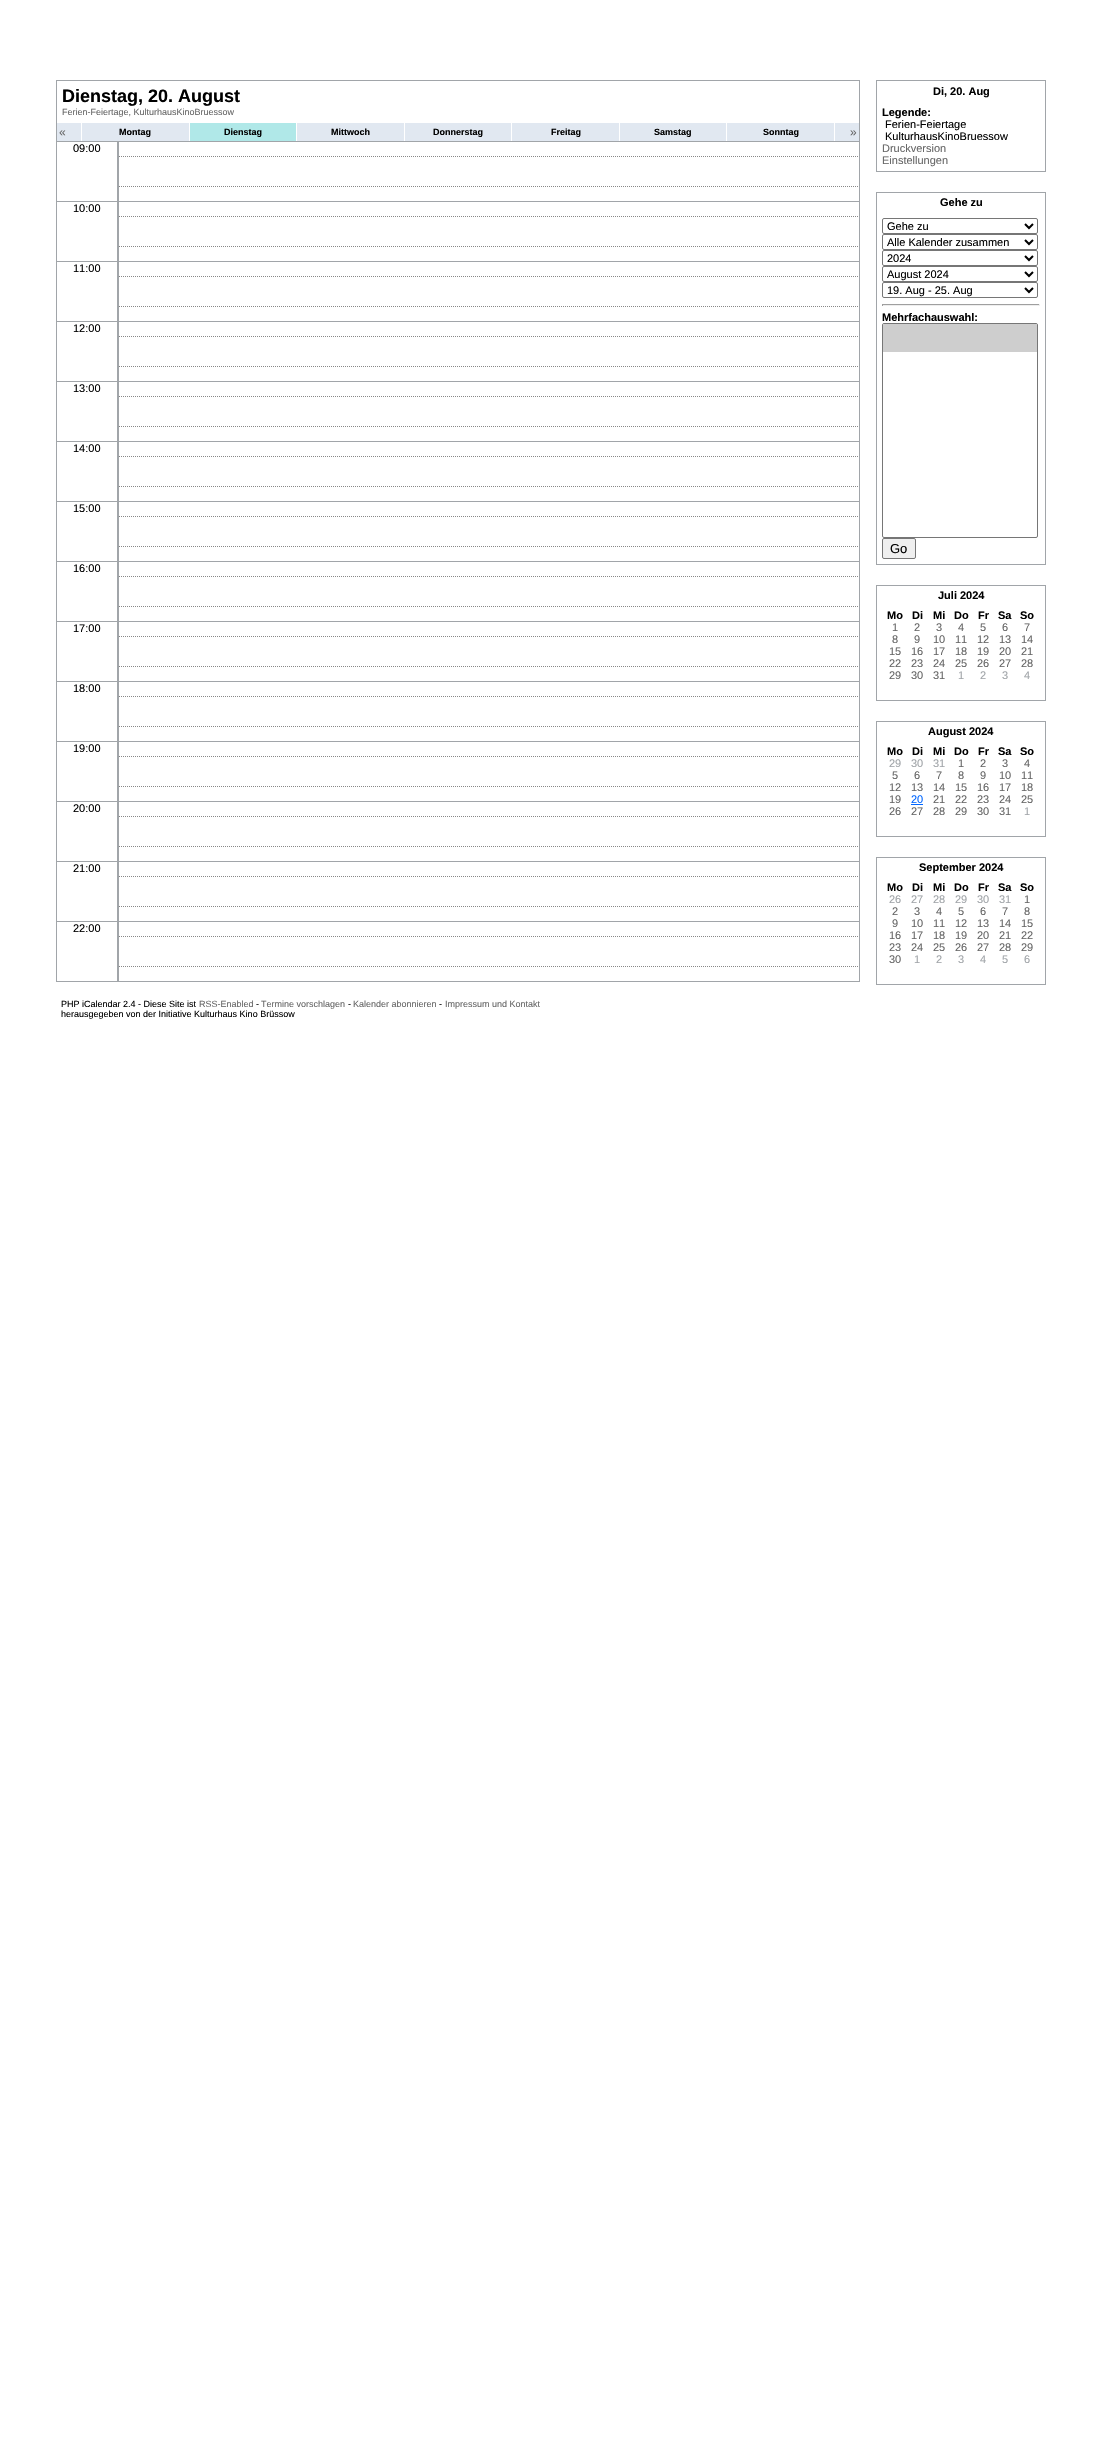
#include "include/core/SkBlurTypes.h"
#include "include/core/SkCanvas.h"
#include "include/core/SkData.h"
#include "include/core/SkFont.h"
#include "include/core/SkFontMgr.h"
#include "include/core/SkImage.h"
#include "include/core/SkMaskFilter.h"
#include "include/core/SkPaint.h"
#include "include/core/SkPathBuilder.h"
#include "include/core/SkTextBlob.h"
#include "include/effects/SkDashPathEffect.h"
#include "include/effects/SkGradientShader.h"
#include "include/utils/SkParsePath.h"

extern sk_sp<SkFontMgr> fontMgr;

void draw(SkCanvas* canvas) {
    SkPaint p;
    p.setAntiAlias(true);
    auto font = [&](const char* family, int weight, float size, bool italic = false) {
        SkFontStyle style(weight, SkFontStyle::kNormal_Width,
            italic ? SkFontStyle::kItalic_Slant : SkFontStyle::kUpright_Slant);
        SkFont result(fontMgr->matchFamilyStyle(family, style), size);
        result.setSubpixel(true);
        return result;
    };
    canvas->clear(0xFFFFFFFF);
    p.setStyle(SkPaint::kStroke_Style);
    p.setStrokeWidth(1);
    p.setColor(0xFFA1A5A9);
    canvas->drawRect(SkRect::MakeLTRB(56.5f, 80.5f, 859.5f, 981.5f), p);
    auto font1 = font("Liberation Sans", 700, 18);
    p.setStyle(SkPaint::kFill_Style);
    p.setColor(0xFF000000);
    canvas->drawString("Dienstag, 20. August", 62, 102, font1, p);
    auto font2 = font("Liberation Sans", 400, 9);
    p.setColor(0xFF666666);
    canvas->drawString("Ferien-Feiertage, KulturhausKinoBruessow", 62, 115, font2, p);
    p.setColor(0xFFE1E8F1);
    canvas->drawRect(SkRect::MakeLTRB(57, 123, 81, 141), p);
    auto font3 = font("Liberation Sans", 400, 12);
    p.setColor(0xFF666666);
    canvas->drawString("«", 59, 136, font3, p);
    p.setColor(0xFFE1E8F1);
    canvas->drawRect(SkRect::MakeLTRB(82, 123, 189, 141), p);
    auto font4 = font("Liberation Sans", 700, 9);
    p.setColor(0xFF000000);
    canvas->drawString("Montag", 119, 135, font4, p);
    p.setColor(0xFFB0E8E8);
    canvas->drawRect(SkRect::MakeLTRB(190, 123, 296, 141), p);
    p.setColor(0xFF000000);
    canvas->drawString("Dienstag", 224, 135, font4, p);
    p.setColor(0xFFE1E8F1);
    canvas->drawRect(SkRect::MakeLTRB(297, 123, 404, 141), p);
    p.setColor(0xFF000000);
    canvas->drawString("Mittwoch", 331, 135, font4, p);
    p.setColor(0xFFE1E8F1);
    canvas->drawRect(SkRect::MakeLTRB(405, 123, 511, 141), p);
    p.setColor(0xFF000000);
    canvas->drawString("Donnerstag", 433, 135, font4, p);
    p.setColor(0xFFE1E8F1);
    canvas->drawRect(SkRect::MakeLTRB(512, 123, 619, 141), p);
    p.setColor(0xFF000000);
    canvas->drawString("Freitag", 551, 135, font4, p);
    p.setColor(0xFFE1E8F1);
    canvas->drawRect(SkRect::MakeLTRB(620, 123, 726, 141), p);
    p.setColor(0xFF000000);
    canvas->drawString("Samstag", 654, 135, font4, p);
    p.setColor(0xFFE1E8F1);
    canvas->drawRect(SkRect::MakeLTRB(727, 123, 834, 141), p);
    p.setColor(0xFF000000);
    canvas->drawString("Sonntag", 763, 135, font4, p);
    p.setColor(0xFFE1E8F1);
    canvas->drawRect(SkRect::MakeLTRB(835, 123, 859, 141), p);
    p.setColor(0xFF666666);
    canvas->drawString("»", 850, 136, font3, p);
    {
        const struct { float l, t, r, b; SkColor color; } items[] = {
            {118, 141, 119, 981, 0xFFA1A5A9},
            {119, 141, 859, 142, 0xFFA1A5A9},
            {57, 141, 118, 142, 0xFFA1A5A9},
            {117, 141, 118, 201, 0xFFA1A5A9},
        };
        for (auto [l, t, r, b, color] : items) {
            p.setColor(color);
            canvas->drawRect(SkRect::MakeLTRB(l, t, r, b), p);
        }
    }
    auto font5 = font("Liberation Sans", 400, 11);
    p.setColor(0xFF000000);
    canvas->drawString("09:00", 73, 152, font5, p);
    p.setStyle(SkPaint::kStroke_Style);
    p.setColor(0xFF888888);
    p.setPathEffect(SkDashPathEffect::Make({{1, 1}}, 0));
    canvas->drawPath(SkPathBuilder().moveTo(119, 156.5f).lineTo(859, 156.5f).detach(), p);
    p.setPathEffect(nullptr);
    p.setPathEffect(SkDashPathEffect::Make({{1, 1}}, 0));
    canvas->drawPath(SkPathBuilder().moveTo(119, 186.5f).lineTo(859, 186.5f).detach(), p);
    p.setPathEffect(nullptr);
    p.setStyle(SkPaint::kFill_Style);
    {
        const struct { float l, t, r, b; SkColor color; } items[] = {
            {119, 201, 859, 202, 0xFFA1A5A9},
            {57, 201, 118, 202, 0xFFA1A5A9},
            {117, 201, 118, 261, 0xFFA1A5A9},
        };
        for (auto [l, t, r, b, color] : items) {
            p.setColor(color);
            canvas->drawRect(SkRect::MakeLTRB(l, t, r, b), p);
        }
    }
    p.setColor(0xFF000000);
    canvas->drawString("10:00", 73, 212, font5, p);
    p.setStyle(SkPaint::kStroke_Style);
    p.setColor(0xFF888888);
    p.setPathEffect(SkDashPathEffect::Make({{1, 1}}, 0));
    canvas->drawPath(SkPathBuilder().moveTo(119, 216.5f).lineTo(859, 216.5f).detach(), p);
    p.setPathEffect(nullptr);
    p.setPathEffect(SkDashPathEffect::Make({{1, 1}}, 0));
    canvas->drawPath(SkPathBuilder().moveTo(119, 246.5f).lineTo(859, 246.5f).detach(), p);
    p.setPathEffect(nullptr);
    p.setStyle(SkPaint::kFill_Style);
    {
        const struct { float l, t, r, b; SkColor color; } items[] = {
            {119, 261, 859, 262, 0xFFA1A5A9},
            {57, 261, 118, 262, 0xFFA1A5A9},
            {117, 261, 118, 321, 0xFFA1A5A9},
        };
        for (auto [l, t, r, b, color] : items) {
            p.setColor(color);
            canvas->drawRect(SkRect::MakeLTRB(l, t, r, b), p);
        }
    }
    p.setColor(0xFF000000);
    canvas->drawString("11:00", 73, 272, font5, p);
    p.setStyle(SkPaint::kStroke_Style);
    p.setColor(0xFF888888);
    p.setPathEffect(SkDashPathEffect::Make({{1, 1}}, 0));
    canvas->drawPath(SkPathBuilder().moveTo(119, 276.5f).lineTo(859, 276.5f).detach(), p);
    p.setPathEffect(nullptr);
    p.setPathEffect(SkDashPathEffect::Make({{1, 1}}, 0));
    canvas->drawPath(SkPathBuilder().moveTo(119, 306.5f).lineTo(859, 306.5f).detach(), p);
    p.setPathEffect(nullptr);
    p.setStyle(SkPaint::kFill_Style);
    {
        const struct { float l, t, r, b; SkColor color; } items[] = {
            {119, 321, 859, 322, 0xFFA1A5A9},
            {57, 321, 118, 322, 0xFFA1A5A9},
            {117, 321, 118, 381, 0xFFA1A5A9},
        };
        for (auto [l, t, r, b, color] : items) {
            p.setColor(color);
            canvas->drawRect(SkRect::MakeLTRB(l, t, r, b), p);
        }
    }
    p.setColor(0xFF000000);
    canvas->drawString("12:00", 73, 332, font5, p);
    p.setStyle(SkPaint::kStroke_Style);
    p.setColor(0xFF888888);
    p.setPathEffect(SkDashPathEffect::Make({{1, 1}}, 0));
    canvas->drawPath(SkPathBuilder().moveTo(119, 336.5f).lineTo(859, 336.5f).detach(), p);
    p.setPathEffect(nullptr);
    p.setPathEffect(SkDashPathEffect::Make({{1, 1}}, 0));
    canvas->drawPath(SkPathBuilder().moveTo(119, 366.5f).lineTo(859, 366.5f).detach(), p);
    p.setPathEffect(nullptr);
    p.setStyle(SkPaint::kFill_Style);
    {
        const struct { float l, t, r, b; SkColor color; } items[] = {
            {119, 381, 859, 382, 0xFFA1A5A9},
            {57, 381, 118, 382, 0xFFA1A5A9},
            {117, 381, 118, 441, 0xFFA1A5A9},
        };
        for (auto [l, t, r, b, color] : items) {
            p.setColor(color);
            canvas->drawRect(SkRect::MakeLTRB(l, t, r, b), p);
        }
    }
    p.setColor(0xFF000000);
    canvas->drawString("13:00", 73, 392, font5, p);
    p.setStyle(SkPaint::kStroke_Style);
    p.setColor(0xFF888888);
    p.setPathEffect(SkDashPathEffect::Make({{1, 1}}, 0));
    canvas->drawPath(SkPathBuilder().moveTo(119, 396.5f).lineTo(859, 396.5f).detach(), p);
    p.setPathEffect(nullptr);
    p.setPathEffect(SkDashPathEffect::Make({{1, 1}}, 0));
    canvas->drawPath(SkPathBuilder().moveTo(119, 426.5f).lineTo(859, 426.5f).detach(), p);
    p.setPathEffect(nullptr);
    p.setStyle(SkPaint::kFill_Style);
    {
        const struct { float l, t, r, b; SkColor color; } items[] = {
            {119, 441, 859, 442, 0xFFA1A5A9},
            {57, 441, 118, 442, 0xFFA1A5A9},
            {117, 441, 118, 501, 0xFFA1A5A9},
        };
        for (auto [l, t, r, b, color] : items) {
            p.setColor(color);
            canvas->drawRect(SkRect::MakeLTRB(l, t, r, b), p);
        }
    }
    p.setColor(0xFF000000);
    canvas->drawString("14:00", 73, 452, font5, p);
    p.setStyle(SkPaint::kStroke_Style);
    p.setColor(0xFF888888);
    p.setPathEffect(SkDashPathEffect::Make({{1, 1}}, 0));
    canvas->drawPath(SkPathBuilder().moveTo(119, 456.5f).lineTo(859, 456.5f).detach(), p);
    p.setPathEffect(nullptr);
    p.setPathEffect(SkDashPathEffect::Make({{1, 1}}, 0));
    canvas->drawPath(SkPathBuilder().moveTo(119, 486.5f).lineTo(859, 486.5f).detach(), p);
    p.setPathEffect(nullptr);
    p.setStyle(SkPaint::kFill_Style);
    {
        const struct { float l, t, r, b; SkColor color; } items[] = {
            {119, 501, 859, 502, 0xFFA1A5A9},
            {57, 501, 118, 502, 0xFFA1A5A9},
            {117, 501, 118, 561, 0xFFA1A5A9},
        };
        for (auto [l, t, r, b, color] : items) {
            p.setColor(color);
            canvas->drawRect(SkRect::MakeLTRB(l, t, r, b), p);
        }
    }
    p.setColor(0xFF000000);
    canvas->drawString("15:00", 73, 512, font5, p);
    p.setStyle(SkPaint::kStroke_Style);
    p.setColor(0xFF888888);
    p.setPathEffect(SkDashPathEffect::Make({{1, 1}}, 0));
    canvas->drawPath(SkPathBuilder().moveTo(119, 516.5f).lineTo(859, 516.5f).detach(), p);
    p.setPathEffect(nullptr);
    p.setPathEffect(SkDashPathEffect::Make({{1, 1}}, 0));
    canvas->drawPath(SkPathBuilder().moveTo(119, 546.5f).lineTo(859, 546.5f).detach(), p);
    p.setPathEffect(nullptr);
    p.setStyle(SkPaint::kFill_Style);
    {
        const struct { float l, t, r, b; SkColor color; } items[] = {
            {119, 561, 859, 562, 0xFFA1A5A9},
            {57, 561, 118, 562, 0xFFA1A5A9},
            {117, 561, 118, 621, 0xFFA1A5A9},
        };
        for (auto [l, t, r, b, color] : items) {
            p.setColor(color);
            canvas->drawRect(SkRect::MakeLTRB(l, t, r, b), p);
        }
    }
    p.setColor(0xFF000000);
    canvas->drawString("16:00", 73, 572, font5, p);
    p.setStyle(SkPaint::kStroke_Style);
    p.setColor(0xFF888888);
    p.setPathEffect(SkDashPathEffect::Make({{1, 1}}, 0));
    canvas->drawPath(SkPathBuilder().moveTo(119, 576.5f).lineTo(859, 576.5f).detach(), p);
    p.setPathEffect(nullptr);
    p.setPathEffect(SkDashPathEffect::Make({{1, 1}}, 0));
    canvas->drawPath(SkPathBuilder().moveTo(119, 606.5f).lineTo(859, 606.5f).detach(), p);
    p.setPathEffect(nullptr);
    p.setStyle(SkPaint::kFill_Style);
    {
        const struct { float l, t, r, b; SkColor color; } items[] = {
            {119, 621, 859, 622, 0xFFA1A5A9},
            {57, 621, 118, 622, 0xFFA1A5A9},
            {117, 621, 118, 681, 0xFFA1A5A9},
        };
        for (auto [l, t, r, b, color] : items) {
            p.setColor(color);
            canvas->drawRect(SkRect::MakeLTRB(l, t, r, b), p);
        }
    }
    p.setColor(0xFF000000);
    canvas->drawString("17:00", 73, 632, font5, p);
    p.setStyle(SkPaint::kStroke_Style);
    p.setColor(0xFF888888);
    p.setPathEffect(SkDashPathEffect::Make({{1, 1}}, 0));
    canvas->drawPath(SkPathBuilder().moveTo(119, 636.5f).lineTo(859, 636.5f).detach(), p);
    p.setPathEffect(nullptr);
    p.setPathEffect(SkDashPathEffect::Make({{1, 1}}, 0));
    canvas->drawPath(SkPathBuilder().moveTo(119, 666.5f).lineTo(859, 666.5f).detach(), p);
    p.setPathEffect(nullptr);
    p.setStyle(SkPaint::kFill_Style);
    {
        const struct { float l, t, r, b; SkColor color; } items[] = {
            {119, 681, 859, 682, 0xFFA1A5A9},
            {57, 681, 118, 682, 0xFFA1A5A9},
            {117, 681, 118, 741, 0xFFA1A5A9},
        };
        for (auto [l, t, r, b, color] : items) {
            p.setColor(color);
            canvas->drawRect(SkRect::MakeLTRB(l, t, r, b), p);
        }
    }
    p.setColor(0xFF000000);
    canvas->drawString("18:00", 73, 692, font5, p);
    p.setStyle(SkPaint::kStroke_Style);
    p.setColor(0xFF888888);
    p.setPathEffect(SkDashPathEffect::Make({{1, 1}}, 0));
    canvas->drawPath(SkPathBuilder().moveTo(119, 696.5f).lineTo(859, 696.5f).detach(), p);
    p.setPathEffect(nullptr);
    p.setPathEffect(SkDashPathEffect::Make({{1, 1}}, 0));
    canvas->drawPath(SkPathBuilder().moveTo(119, 726.5f).lineTo(859, 726.5f).detach(), p);
    p.setPathEffect(nullptr);
    p.setStyle(SkPaint::kFill_Style);
    {
        const struct { float l, t, r, b; SkColor color; } items[] = {
            {119, 741, 859, 742, 0xFFA1A5A9},
            {57, 741, 118, 742, 0xFFA1A5A9},
            {117, 741, 118, 801, 0xFFA1A5A9},
        };
        for (auto [l, t, r, b, color] : items) {
            p.setColor(color);
            canvas->drawRect(SkRect::MakeLTRB(l, t, r, b), p);
        }
    }
    p.setColor(0xFF000000);
    canvas->drawString("19:00", 73, 752, font5, p);
    p.setStyle(SkPaint::kStroke_Style);
    p.setColor(0xFF888888);
    p.setPathEffect(SkDashPathEffect::Make({{1, 1}}, 0));
    canvas->drawPath(SkPathBuilder().moveTo(119, 756.5f).lineTo(859, 756.5f).detach(), p);
    p.setPathEffect(nullptr);
    p.setPathEffect(SkDashPathEffect::Make({{1, 1}}, 0));
    canvas->drawPath(SkPathBuilder().moveTo(119, 786.5f).lineTo(859, 786.5f).detach(), p);
    p.setPathEffect(nullptr);
    p.setStyle(SkPaint::kFill_Style);
    {
        const struct { float l, t, r, b; SkColor color; } items[] = {
            {119, 801, 859, 802, 0xFFA1A5A9},
            {57, 801, 118, 802, 0xFFA1A5A9},
            {117, 801, 118, 861, 0xFFA1A5A9},
        };
        for (auto [l, t, r, b, color] : items) {
            p.setColor(color);
            canvas->drawRect(SkRect::MakeLTRB(l, t, r, b), p);
        }
    }
    p.setColor(0xFF000000);
    canvas->drawString("20:00", 73, 812, font5, p);
    p.setStyle(SkPaint::kStroke_Style);
    p.setColor(0xFF888888);
    p.setPathEffect(SkDashPathEffect::Make({{1, 1}}, 0));
    canvas->drawPath(SkPathBuilder().moveTo(119, 816.5f).lineTo(859, 816.5f).detach(), p);
    p.setPathEffect(nullptr);
    p.setPathEffect(SkDashPathEffect::Make({{1, 1}}, 0));
    canvas->drawPath(SkPathBuilder().moveTo(119, 846.5f).lineTo(859, 846.5f).detach(), p);
    p.setPathEffect(nullptr);
    p.setStyle(SkPaint::kFill_Style);
    {
        const struct { float l, t, r, b; SkColor color; } items[] = {
            {119, 861, 859, 862, 0xFFA1A5A9},
            {57, 861, 118, 862, 0xFFA1A5A9},
            {117, 861, 118, 921, 0xFFA1A5A9},
        };
        for (auto [l, t, r, b, color] : items) {
            p.setColor(color);
            canvas->drawRect(SkRect::MakeLTRB(l, t, r, b), p);
        }
    }
    p.setColor(0xFF000000);
    canvas->drawString("21:00", 73, 872, font5, p);
    p.setStyle(SkPaint::kStroke_Style);
    p.setColor(0xFF888888);
    p.setPathEffect(SkDashPathEffect::Make({{1, 1}}, 0));
    canvas->drawPath(SkPathBuilder().moveTo(119, 876.5f).lineTo(859, 876.5f).detach(), p);
    p.setPathEffect(nullptr);
    p.setPathEffect(SkDashPathEffect::Make({{1, 1}}, 0));
    canvas->drawPath(SkPathBuilder().moveTo(119, 906.5f).lineTo(859, 906.5f).detach(), p);
    p.setPathEffect(nullptr);
    p.setStyle(SkPaint::kFill_Style);
    {
        const struct { float l, t, r, b; SkColor color; } items[] = {
            {119, 921, 859, 922, 0xFFA1A5A9},
            {57, 921, 118, 922, 0xFFA1A5A9},
            {117, 921, 118, 981, 0xFFA1A5A9},
        };
        for (auto [l, t, r, b, color] : items) {
            p.setColor(color);
            canvas->drawRect(SkRect::MakeLTRB(l, t, r, b), p);
        }
    }
    p.setColor(0xFF000000);
    canvas->drawString("22:00", 73, 932, font5, p);
    p.setStyle(SkPaint::kStroke_Style);
    p.setColor(0xFF888888);
    p.setPathEffect(SkDashPathEffect::Make({{1, 1}}, 0));
    canvas->drawPath(SkPathBuilder().moveTo(119, 936.5f).lineTo(859, 936.5f).detach(), p);
    p.setPathEffect(nullptr);
    p.setPathEffect(SkDashPathEffect::Make({{1, 1}}, 0));
    canvas->drawPath(SkPathBuilder().moveTo(119, 966.5f).lineTo(859, 966.5f).detach(), p);
    p.setPathEffect(nullptr);
    p.setColor(0xFFA1A5A9);
    canvas->drawRect(SkRect::MakeLTRB(876.5f, 80.5f, 1045.5f, 171.5f), p);
    auto font6 = font("Liberation Sans", 700, 11);
    p.setStyle(SkPaint::kFill_Style);
    p.setColor(0xFF000000);
    canvas->drawString("Di, 20. Aug", 933, 95, font6, p);
    canvas->drawString("Legende:", 882, 116, font6, p);
    canvas->drawString("Ferien-Feiertage", 885, 128, font5, p);
    canvas->drawString("KulturhausKinoBruessow", 885, 140, font5, p);
    p.setColor(0xFF666666);
    canvas->drawString("Druckversion", 882, 152, font5, p);
    canvas->drawString("Einstellungen", 882, 164, font5, p);
    p.setStyle(SkPaint::kStroke_Style);
    p.setColor(0xFFA1A5A9);
    canvas->drawRect(SkRect::MakeLTRB(876.5f, 192.5f, 1045.5f, 564.5f), p);
    p.setStyle(SkPaint::kFill_Style);
    p.setColor(0xFF000000);
    canvas->drawString("Gehe zu", 940, 206, font6, p);
    p.setStyle(SkPaint::kStroke_Style);
    p.setColor(0xFF767676);
    canvas->drawRoundRect(SkRect::MakeLTRB(882.5f, 218.5f, 1037.5f, 233.5f), 1.5f, 1.5f, p);
    p.setStrokeWidth(2);
    p.setColor(0xFF000000);
    canvas->drawPath(SkPathBuilder().moveTo(1025, 224).lineTo(1029, 228).lineTo(1033, 224).detach(), p);
    p.setStyle(SkPaint::kFill_Style);
    canvas->drawString("Gehe zu", 887, 230, font5, p);
    p.setStyle(SkPaint::kStroke_Style);
    p.setStrokeWidth(1);
    p.setColor(0xFF767676);
    canvas->drawRoundRect(SkRect::MakeLTRB(882.5f, 234.5f, 1037.5f, 249.5f), 1.5f, 1.5f, p);
    p.setStrokeWidth(2);
    p.setColor(0xFF000000);
    canvas->drawPath(SkPathBuilder().moveTo(1025, 240).lineTo(1029, 244).lineTo(1033, 240).detach(), p);
    p.setStyle(SkPaint::kFill_Style);
    canvas->drawString("Alle Kalender zusammen", 887, 246, font5, p);
    p.setStyle(SkPaint::kStroke_Style);
    p.setStrokeWidth(1);
    p.setColor(0xFF767676);
    canvas->drawRoundRect(SkRect::MakeLTRB(882.5f, 250.5f, 1037.5f, 265.5f), 1.5f, 1.5f, p);
    p.setStrokeWidth(2);
    p.setColor(0xFF000000);
    canvas->drawPath(SkPathBuilder().moveTo(1025, 256).lineTo(1029, 260).lineTo(1033, 256).detach(), p);
    p.setStyle(SkPaint::kFill_Style);
    canvas->drawString("2024", 887, 262, font5, p);
    p.setStyle(SkPaint::kStroke_Style);
    p.setStrokeWidth(1);
    p.setColor(0xFF767676);
    canvas->drawRoundRect(SkRect::MakeLTRB(882.5f, 266.5f, 1037.5f, 281.5f), 1.5f, 1.5f, p);
    p.setStrokeWidth(2);
    p.setColor(0xFF000000);
    canvas->drawPath(SkPathBuilder().moveTo(1025, 272).lineTo(1029, 276).lineTo(1033, 272).detach(), p);
    p.setStyle(SkPaint::kFill_Style);
    canvas->drawString("August 2024", 887, 278, font5, p);
    p.setStyle(SkPaint::kStroke_Style);
    p.setStrokeWidth(1);
    p.setColor(0xFF767676);
    canvas->drawRoundRect(SkRect::MakeLTRB(882.5f, 282.5f, 1037.5f, 297.5f), 1.5f, 1.5f, p);
    p.setStrokeWidth(2);
    p.setColor(0xFF000000);
    canvas->drawPath(SkPathBuilder().moveTo(1025, 288).lineTo(1029, 292).lineTo(1033, 288).detach(), p);
    p.setStyle(SkPaint::kFill_Style);
    canvas->drawString("19. Aug - 25. Aug", 887, 294, font5, p);
    {
        const struct { float l, t, r, b; SkColor color; } items[] = {
            {882, 304, 1040, 305, 0xFF9F9F9F},
            {1039, 304, 1040, 306, 0xFFEEEEEE},
            {882, 305, 1040, 306, 0xFFEEEEEE},
            {882, 304, 883, 306, 0xFF9F9F9F},
        };
        for (auto [l, t, r, b, color] : items) {
            p.setColor(color);
            canvas->drawRect(SkRect::MakeLTRB(l, t, r, b), p);
        }
    }
    p.setColor(0xFF000000);
    canvas->drawString("Mehrfachauswahl:", 882, 321, font6, p);
    p.setStyle(SkPaint::kStroke_Style);
    p.setStrokeWidth(1);
    p.setColor(0xFF767676);
    canvas->drawRoundRect(SkRect::MakeLTRB(882.5f, 323.5f, 1037.5f, 537.5f), 1.5f, 1.5f, p);
    p.setStyle(SkPaint::kFill_Style);
    p.setColor(0xFFCECECE);
    canvas->drawPath(SkPathBuilder().moveTo(884, 324).lineTo(1036, 324).cubicTo(1036.5f, 324, 1037, 324.5f, 1037, 325).lineTo(1037, 338).lineTo(883, 338).lineTo(883, 325).cubicTo(883, 324.5f, 883.5f, 324, 884, 324).close().detach(), p);
    canvas->drawRect(SkRect::MakeLTRB(883, 338, 1037, 352), p);
    p.setColor(0xFFEFEFEF);
    canvas->drawRoundRect(SkRect::MakeLTRB(882.5f, 538.5f, 915.5f, 558.5f), 1.5f, 1.5f, p);
    p.setStyle(SkPaint::kStroke_Style);
    p.setColor(0xFF767676);
    canvas->drawRoundRect(SkRect::MakeLTRB(882.5f, 538.5f, 915.5f, 558.5f), 1.5f, 1.5f, p);
    auto font7 = font("Liberation Sans", 400, 13);
    p.setStyle(SkPaint::kFill_Style);
    p.setColor(0xFF000000);
    canvas->drawString("Go", 890, 553, font7, p);
    p.setStyle(SkPaint::kStroke_Style);
    p.setColor(0xFFA1A5A9);
    canvas->drawRect(SkRect::MakeLTRB(876.5f, 585.5f, 1045.5f, 700.5f), p);
    p.setStyle(SkPaint::kFill_Style);
    p.setColor(0xFF000000);
    {
        const struct { const char* s; float x, y; } items[] = {
            {"Juli 2024", 938, 599},
            {"Mo", 887, 619},
            {"Di", 912, 619},
            {"Mi", 933, 619},
            {"Do", 954, 619},
            {"Fr", 978, 619},
            {"Sa", 998, 619},
            {"So", 1020, 619},
        };
        for (auto [s, x, y] : items) {
            canvas->drawString(s, x, y, font6, p);
        }
    }
    p.setColor(0xFF666666);
    {
        const struct { const char* s; float x, y; } items[] = {
            {"1", 892, 631},
            {"2", 914, 631},
            {"3", 936, 631},
            {"4", 958, 631},
            {"5", 980, 631},
            {"6", 1002, 631},
            {"7", 1024, 631},
            {"8", 892, 643},
            {"9", 914, 643},
            {"10", 933, 643},
            {"11", 955, 643},
            {"12", 977, 643},
            {"13", 999, 643},
            {"14", 1021, 643},
            {"15", 889, 655},
            {"16", 911, 655},
            {"17", 933, 655},
            {"18", 955, 655},
            {"19", 977, 655},
            {"20", 999, 655},
            {"21", 1021, 655},
            {"22", 889, 667},
            {"23", 911, 667},
            {"24", 933, 667},
            {"25", 955, 667},
            {"26", 977, 667},
            {"27", 999, 667},
            {"28", 1021, 667},
            {"29", 889, 679},
            {"30", 911, 679},
            {"31", 933, 679},
        };
        for (auto [s, x, y] : items) {
            canvas->drawString(s, x, y, font5, p);
        }
    }
    p.setColor(0xFFA1A5A9);
    {
        const struct { const char* s; float x, y; } items[] = {
            {"1", 958, 679},
            {"2", 980, 679},
            {"3", 1002, 679},
            {"4", 1024, 679},
        };
        for (auto [s, x, y] : items) {
            canvas->drawString(s, x, y, font5, p);
        }
    }
    p.setStyle(SkPaint::kStroke_Style);
    canvas->drawRect(SkRect::MakeLTRB(876.5f, 721.5f, 1045.5f, 836.5f), p);
    p.setStyle(SkPaint::kFill_Style);
    p.setColor(0xFF000000);
    {
        const struct { const char* s; float x, y; } items[] = {
            {"August 2024", 928, 735},
            {"Mo", 887, 755},
            {"Di", 912, 755},
            {"Mi", 933, 755},
            {"Do", 954, 755},
            {"Fr", 978, 755},
            {"Sa", 998, 755},
            {"So", 1020, 755},
        };
        for (auto [s, x, y] : items) {
            canvas->drawString(s, x, y, font6, p);
        }
    }
    p.setColor(0xFFA1A5A9);
    {
        const struct { const char* s; float x, y; } items[] = {
            {"29", 889, 767},
            {"30", 911, 767},
            {"31", 933, 767},
        };
        for (auto [s, x, y] : items) {
            canvas->drawString(s, x, y, font5, p);
        }
    }
    p.setColor(0xFF666666);
    {
        const struct { const char* s; float x, y; } items[] = {
            {"1", 958, 767},
            {"2", 980, 767},
            {"3", 1002, 767},
            {"4", 1024, 767},
            {"5", 892, 779},
            {"6", 914, 779},
            {"7", 936, 779},
            {"8", 958, 779},
            {"9", 980, 779},
            {"10", 999, 779},
            {"11", 1021, 779},
            {"12", 889, 791},
            {"13", 911, 791},
            {"14", 933, 791},
            {"15", 955, 791},
            {"16", 977, 791},
            {"17", 999, 791},
            {"18", 1021, 791},
            {"19", 889, 803},
        };
        for (auto [s, x, y] : items) {
            canvas->drawString(s, x, y, font5, p);
        }
    }
    p.setColor(0xFF0066FF);
    canvas->drawString("20", 911, 803, font5, p);
    canvas->drawRect(SkRect::MakeLTRB(911, 804, 923, 805), p);
    p.setColor(0xFF666666);
    {
        const struct { const char* s; float x, y; } items[] = {
            {"21", 933, 803},
            {"22", 955, 803},
            {"23", 977, 803},
            {"24", 999, 803},
            {"25", 1021, 803},
            {"26", 889, 815},
            {"27", 911, 815},
            {"28", 933, 815},
            {"29", 955, 815},
            {"30", 977, 815},
            {"31", 999, 815},
        };
        for (auto [s, x, y] : items) {
            canvas->drawString(s, x, y, font5, p);
        }
    }
    p.setColor(0xFFA1A5A9);
    canvas->drawString("1", 1024, 815, font5, p);
    p.setStyle(SkPaint::kStroke_Style);
    canvas->drawRect(SkRect::MakeLTRB(876.5f, 857.5f, 1045.5f, 984.5f), p);
    p.setStyle(SkPaint::kFill_Style);
    p.setColor(0xFF000000);
    {
        const struct { const char* s; float x, y; } items[] = {
            {"September 2024", 919, 871},
            {"Mo", 887, 891},
            {"Di", 912, 891},
            {"Mi", 933, 891},
            {"Do", 954, 891},
            {"Fr", 978, 891},
            {"Sa", 998, 891},
            {"So", 1020, 891},
        };
        for (auto [s, x, y] : items) {
            canvas->drawString(s, x, y, font6, p);
        }
    }
    p.setColor(0xFFA1A5A9);
    {
        const struct { const char* s; float x, y; } items[] = {
            {"26", 889, 903},
            {"27", 911, 903},
            {"28", 933, 903},
            {"29", 955, 903},
            {"30", 977, 903},
            {"31", 999, 903},
        };
        for (auto [s, x, y] : items) {
            canvas->drawString(s, x, y, font5, p);
        }
    }
    p.setColor(0xFF666666);
    {
        const struct { const char* s; float x, y; } items[] = {
            {"1", 1024, 903},
            {"2", 892, 915},
            {"3", 914, 915},
            {"4", 936, 915},
            {"5", 958, 915},
            {"6", 980, 915},
            {"7", 1002, 915},
            {"8", 1024, 915},
            {"9", 892, 927},
            {"10", 911, 927},
            {"11", 933, 927},
            {"12", 955, 927},
            {"13", 977, 927},
            {"14", 999, 927},
            {"15", 1021, 927},
            {"16", 889, 939},
            {"17", 911, 939},
            {"18", 933, 939},
            {"19", 955, 939},
            {"20", 977, 939},
            {"21", 999, 939},
            {"22", 1021, 939},
            {"23", 889, 951},
            {"24", 911, 951},
            {"25", 933, 951},
            {"26", 955, 951},
            {"27", 977, 951},
            {"28", 999, 951},
            {"29", 1021, 951},
            {"30", 889, 963},
        };
        for (auto [s, x, y] : items) {
            canvas->drawString(s, x, y, font5, p);
        }
    }
    p.setColor(0xFFA1A5A9);
    {
        const struct { const char* s; float x, y; } items[] = {
            {"1", 914, 963},
            {"2", 936, 963},
            {"3", 958, 963},
            {"4", 980, 963},
            {"5", 1002, 963},
            {"6", 1024, 963},
        };
        for (auto [s, x, y] : items) {
            canvas->drawString(s, x, y, font5, p);
        }
    }
    p.setColor(0xFF000000);
    canvas->drawString("PHP iCalendar 2.4 - Diese Site ist", 61, 1007, font2, p);
    p.setColor(0xFF666666);
    canvas->drawString("RSS-Enabled", 199, 1007, font2, p);
    p.setColor(0xFF000000);
    canvas->drawString("-", 256, 1007, font2, p);
    p.setColor(0xFF666666);
    canvas->drawString("Termine vorschlagen", 261, 1007, font2, p);
    p.setColor(0xFF000000);
    canvas->drawString("-", 348, 1007, font2, p);
    p.setColor(0xFF666666);
    canvas->drawString("Kalender abonnieren", 353, 1007, font2, p);
    p.setColor(0xFF000000);
    canvas->drawString("-", 439, 1007, font2, p);
    p.setColor(0xFF666666);
    canvas->drawString("Impressum und Kontakt", 445, 1007, font2, p);
    p.setColor(0xFF000000);
    canvas->drawString("herausgegeben von der Initiative Kulturhaus Kino Brüssow", 61, 1017, font2, p);
}
